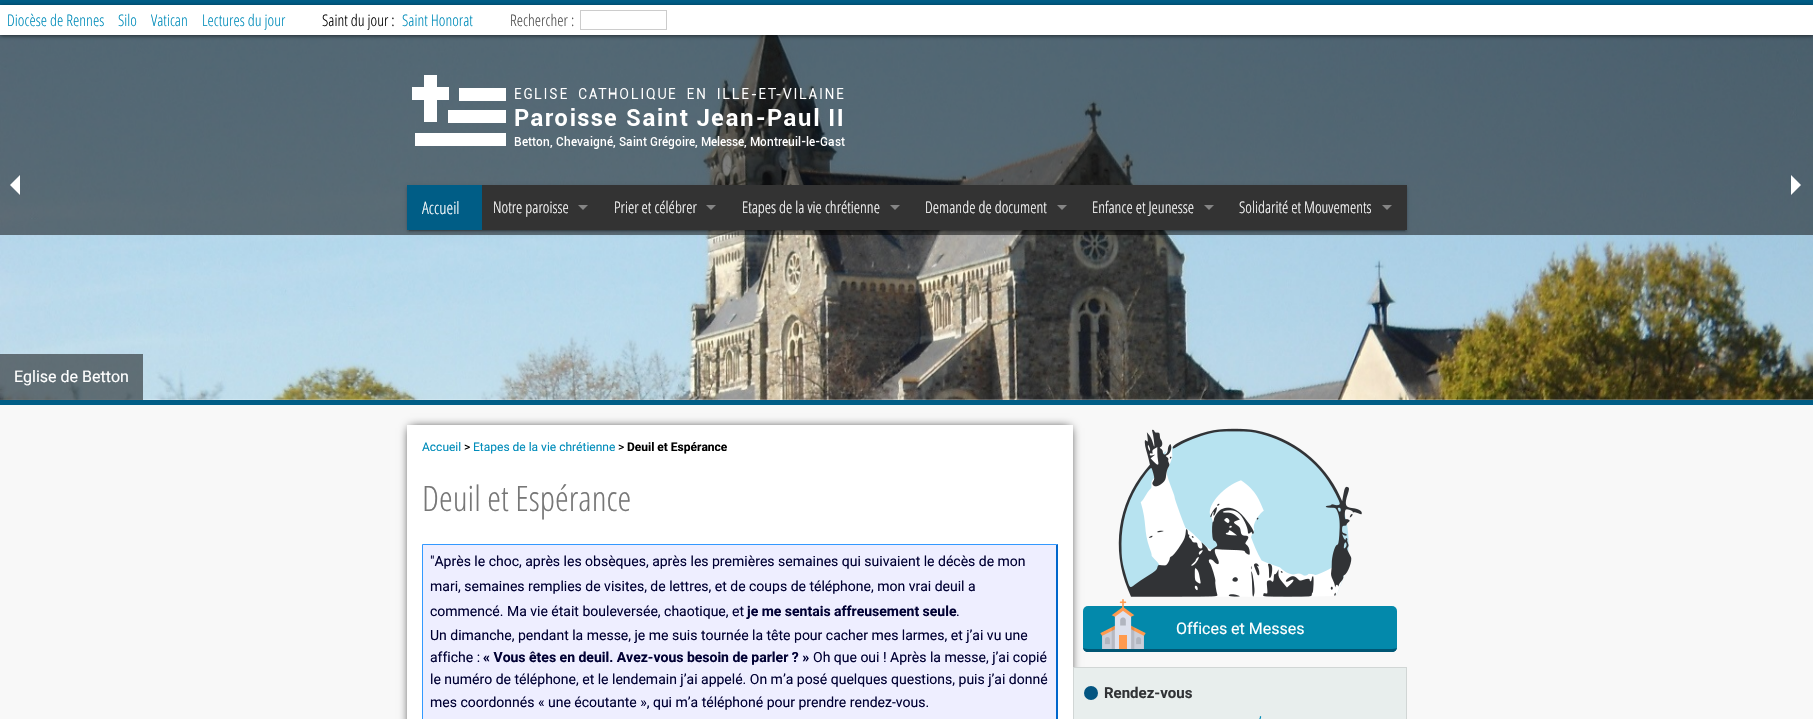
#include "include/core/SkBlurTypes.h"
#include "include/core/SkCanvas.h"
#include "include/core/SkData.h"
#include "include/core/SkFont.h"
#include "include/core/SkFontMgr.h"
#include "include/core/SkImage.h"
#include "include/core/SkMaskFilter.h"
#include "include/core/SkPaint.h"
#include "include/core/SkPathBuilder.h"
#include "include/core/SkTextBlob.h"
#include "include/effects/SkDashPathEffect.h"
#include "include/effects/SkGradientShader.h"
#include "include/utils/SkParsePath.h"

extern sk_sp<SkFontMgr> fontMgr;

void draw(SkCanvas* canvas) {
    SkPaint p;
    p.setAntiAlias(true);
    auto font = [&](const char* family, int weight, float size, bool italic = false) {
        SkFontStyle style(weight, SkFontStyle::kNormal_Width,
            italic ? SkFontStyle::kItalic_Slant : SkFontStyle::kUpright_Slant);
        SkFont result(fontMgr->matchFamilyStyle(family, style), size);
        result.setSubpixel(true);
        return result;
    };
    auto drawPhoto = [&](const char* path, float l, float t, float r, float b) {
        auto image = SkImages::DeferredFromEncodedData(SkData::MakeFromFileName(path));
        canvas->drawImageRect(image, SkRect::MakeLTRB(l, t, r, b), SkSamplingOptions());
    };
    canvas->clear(0xFFFFFFFF);
    drawPhoto("media/2.png", 0, 35, 1813, 400);
    p.setColor(0x80000000);
    canvas->drawRect(SkRect::MakeLTRB(0, 35, 1813, 235), p);
    p.setColor(0xFF005D86);
    canvas->drawRect(SkRect::MakeLTRB(0, 0, 1813, 5), p);
    p.setColor(0x99000000);
    p.setMaskFilter(SkMaskFilter::MakeBlur(kNormal_SkBlurStyle, 2));
    canvas->drawRect(SkRect::MakeLTRB(0, 6, 1813, 36), p);
    p.setMaskFilter(nullptr);
    p.setColor(0xFFFFFFFF);
    canvas->drawRect(SkRect::MakeLTRB(0, 5, 1813, 35), p);
    auto font1 = font("Open Sans Condensed", 300, 16);
    p.setColor(0xFF008CBA);
    {
        const struct { const char* s; float x, y; } items[] = {
            {"Diocèse de Rennes", 7, 26},
            {"Silo", 118, 26},
            {"Vatican", 151, 26},
            {"Lectures du jour", 202, 26},
        };
        for (auto [s, x, y] : items) {
            canvas->drawString(s, x, y, font1, p);
        }
    }
    p.setColor(0xFF000000);
    canvas->drawString("Saint du jour :", 322, 26, font1, p);
    p.setColor(0xFF008CBA);
    canvas->drawString("Saint Honorat", 402, 26, font1, p);
    p.setColor(0xFF4D4D4D);
    canvas->drawString("Rechercher :", 510, 26, font1, p);
    p.setStyle(SkPaint::kStroke_Style);
    p.setStrokeWidth(1);
    p.setColor(0xFFCCCCCC);
    canvas->drawRect(SkRect::MakeLTRB(580.5f, 10.5f, 666.5f, 29.5f), p);
    drawPhoto("media/1.png", 412, 75, 845, 149);
    p.setStyle(SkPaint::kFill_Style);
    p.setColor(0x33000000);
    p.setMaskFilter(SkMaskFilter::MakeBlur(kNormal_SkBlurStyle, 0.5f));
    canvas->drawRect(SkRect::MakeLTRB(409, 190, 1405, 231), p);
    p.setMaskFilter(nullptr);
    p.setColor(0x1F000000);
    p.setMaskFilter(SkMaskFilter::MakeBlur(kNormal_SkBlurStyle, 2.5f));
    canvas->drawRect(SkRect::MakeLTRB(407, 186, 1407, 231), p);
    p.setMaskFilter(nullptr);
    p.setColor(0x24000000);
    p.setMaskFilter(SkMaskFilter::MakeBlur(kNormal_SkBlurStyle, 1));
    canvas->drawRect(SkRect::MakeLTRB(407, 187, 1407, 232), p);
    p.setMaskFilter(nullptr);
    p.setColor(0xFF005D86);
    canvas->drawRect(SkRect::MakeLTRB(407, 185, 482, 230), p);
    auto font2 = font("Open Sans Condensed", 300, 17);
    p.setColor(0xFFFFFFFF);
    canvas->drawString("Accueil", 422, 214, font2, p);
    p.setColor(0xFF333333);
    canvas->drawRect(SkRect::MakeLTRB(482, 185, 1407, 230), p);
    p.setColor(0xFFFFFFFF);
    canvas->drawString("Notre paroisse", 493, 213, font1, p);
    p.setColor(0xFF858585);
    canvas->drawPath(SkPathBuilder().moveTo(578, 205).lineTo(588, 205).lineTo(583, 210).close().detach(), p);
    p.setColor(0xFFFFFFFF);
    canvas->drawString("Prier et célébrer", 614, 213, font1, p);
    p.setColor(0xFF858585);
    canvas->drawPath(SkPathBuilder().moveTo(706, 205).lineTo(716, 205).lineTo(711, 210).close().detach(), p);
    p.setColor(0xFFFFFFFF);
    canvas->drawString("Etapes de la vie chrétienne", 742, 213, font1, p);
    p.setColor(0xFF858585);
    canvas->drawPath(SkPathBuilder().moveTo(890, 205).lineTo(900, 205).lineTo(895, 210).close().detach(), p);
    p.setColor(0xFFFFFFFF);
    canvas->drawString("Demande de document", 925, 213, font1, p);
    p.setColor(0xFF858585);
    canvas->drawPath(SkPathBuilder().moveTo(1057, 205).lineTo(1067, 205).lineTo(1062, 210).close().detach(), p);
    p.setColor(0xFFFFFFFF);
    canvas->drawString("Enfance et Jeunesse", 1092, 213, font1, p);
    p.setColor(0xFF858585);
    canvas->drawPath(SkPathBuilder().moveTo(1204, 205).lineTo(1214, 205).lineTo(1209, 210).close().detach(), p);
    p.setColor(0xFFFFFFFF);
    canvas->drawString("Solidarité et Mouvements", 1239, 213, font1, p);
    p.setColor(0xFF858585);
    canvas->drawPath(SkPathBuilder().moveTo(1382, 205).lineTo(1392, 205).lineTo(1387, 210).close().detach(), p);
    p.setColor(0xFFFFFFFF);
    canvas->drawPath(SkPathBuilder().moveTo(20, 175).lineTo(20, 195).lineTo(10, 185).close().detach(), p);
    canvas->drawPath(SkPathBuilder().moveTo(1791, 195).lineTo(1791, 175).lineTo(1801, 185).close().detach(), p);
    p.setColor(0x80000000);
    canvas->drawRect(SkRect::MakeLTRB(0, 354, 143, 400), p);
    auto font3 = font("Roboto", 400, 16);
    p.setColor(0xFFFFFFFF);
    canvas->drawString("Eglise de Betton", 14, 382, font3, p);
    p.setColor(0xFF005D86);
    canvas->drawRect(SkRect::MakeLTRB(0, 400, 1813, 405), p);
    p.setColor(0xFFF8F8F8);
    canvas->drawRect(SkRect::MakeLTRB(0, 405, 1813, 719), p);
    p.setColor(0xFF000000);
    p.setMaskFilter(SkMaskFilter::MakeBlur(kNormal_SkBlurStyle, 5));
    canvas->drawRect(SkRect::MakeLTRB(410, 428, 1070, 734), p);
    p.setMaskFilter(nullptr);
    p.setColor(0xFFFFFFFF);
    canvas->drawRect(SkRect::MakeLTRB(407, 425, 1073, 719), p);
    auto font4 = font("Roboto", 400, 12);
    p.setColor(0xFF008CBA);
    canvas->drawString("Accueil", 422, 451, font4, p);
    p.setColor(0xFF000000);
    canvas->drawString(">", 464, 451, font4, p);
    p.setColor(0xFF008CBA);
    canvas->drawString("Etapes de la vie chrétienne", 473, 451, font4, p);
    p.setColor(0xFF000000);
    canvas->drawString(">", 618, 451, font4, p);
    auto font5 = font("Roboto", 700, 12);
    canvas->drawString("Deuil et Espérance", 627, 451, font5, p);
    auto font6 = font("Open Sans Condensed", 300, 35);
    p.setColor(0xFF777777);
    canvas->drawString("Deuil et Espérance", 422, 511, font6, p);
    p.setColor(0xFFEEEEFF);
    canvas->drawRect(SkRect::MakeLTRB(423, 545, 1056, 719), p);
    p.setColor(0xFF3399FF);
    canvas->drawPath(SkPathBuilder().moveTo(422, 544).lineTo(1058, 544).lineTo(1056, 545).lineTo(423, 545).close().detach(), p);
    p.setColor(0xFF0066CC);
    canvas->drawPath(SkPathBuilder().moveTo(1058, 544).lineTo(1058, 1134).lineTo(1056, 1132).lineTo(1056, 545).close().detach(), p);
    p.setColor(0xFF3399FF);
    canvas->drawPath(SkPathBuilder().moveTo(422, 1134).lineTo(422, 544).lineTo(423, 545).lineTo(423, 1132).close().detach(), p);
    auto font7 = font("Roboto", 400, 14);
    p.setColor(0xFF000033);
    {
        const struct { const char* s; float x, y; } items[] = {
            {"\"Après le choc, après les obsèques, après les premières semaines qui suivaient le décès de mon", 430, 566},
            {"mari, semaines remplies de visites, de lettres, et de coups de téléphone, mon vrai deuil a", 430, 591},
            {"commencé. Ma vie était bouleversée, chaotique, et", 430, 616},
        };
        for (auto [s, x, y] : items) {
            canvas->drawString(s, x, y, font7, p);
        }
    }
    auto font8 = font("Roboto", 700, 14);
    canvas->drawString("je me sentais affreusement seule", 747, 616, font8, p);
    {
        const struct { const char* s; float x, y; } items[] = {
            {".", 956, 616},
            {"Un dimanche, pendant la messe, je me suis tournée la tête pour cacher mes larmes, et j’ai vu une", 430, 640},
            {"affiche :", 430, 662},
        };
        for (auto [s, x, y] : items) {
            canvas->drawString(s, x, y, font7, p);
        }
    }
    canvas->drawString("« Vous êtes en deuil. Avez-vous besoin de parler ? »", 483, 662, font8, p);
    {
        const struct { const char* s; float x, y; } items[] = {
            {"Oh que oui ! Après la messe, j’ai copié", 813, 662},
            {"le numéro de téléphone, et le lendemain j’ai appelé. On m’a posé quelques questions, puis j’ai donné", 430, 684},
            {"mes coordonnés « une écoutante », qui m’a téléphoné pour prendre rendez-vous.", 430, 707},
        };
        for (auto [s, x, y] : items) {
            canvas->drawString(s, x, y, font7, p);
        }
    }
    drawPhoto("media/3.png", 1118, 428, 1362, 597);
    p.setColor(0xFF0389AB);
    canvas->drawRoundRect(SkRect::MakeLTRB(1083, 606, 1397, 652), 5, 5, p);
    p.setColor(0xFF005674);
    canvas->drawPath(SkPathBuilder().moveTo(1392, 652).cubicTo(1395, 652, 1397, 650, 1397, 647).cubicTo(1397, 648, 1395, 649, 1392, 649).lineTo(1088, 649).cubicTo(1085, 649, 1083, 648, 1083, 647).cubicTo(1083, 650, 1085, 652, 1088, 652).close().detach(), p);
    drawPhoto("media/4.png", 1100, 599, 1146, 649);
    p.setColor(0xFFFFFFFF);
    canvas->drawString("Offices et Messes", 1176, 634, font3, p);
    p.setColor(0xFFE8EEED);
    canvas->drawRect(SkRect::MakeLTRB(1073.5f, 667.5f, 1406.5f, 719.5f), p);
    p.setStyle(SkPaint::kStroke_Style);
    p.setColor(0xFFD1D6D5);
    canvas->drawRect(SkRect::MakeLTRB(1073.5f, 667.5f, 1406.5f, 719.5f), p);
    p.setStyle(SkPaint::kFill_Style);
    p.setColor(0xFF035581);
    canvas->drawCircle(1091, 693, 7, p);
    auto font9 = font("Roboto", 700, 15);
    p.setColor(0xFF313336);
    canvas->drawString("Rendez-vous", 1104, 698, font9, p);
    auto font10 = font("Roboto", 400, 13);
    p.setColor(0xFF008CBA);
    canvas->drawString("’", 1259, 726, font10, p);
}
